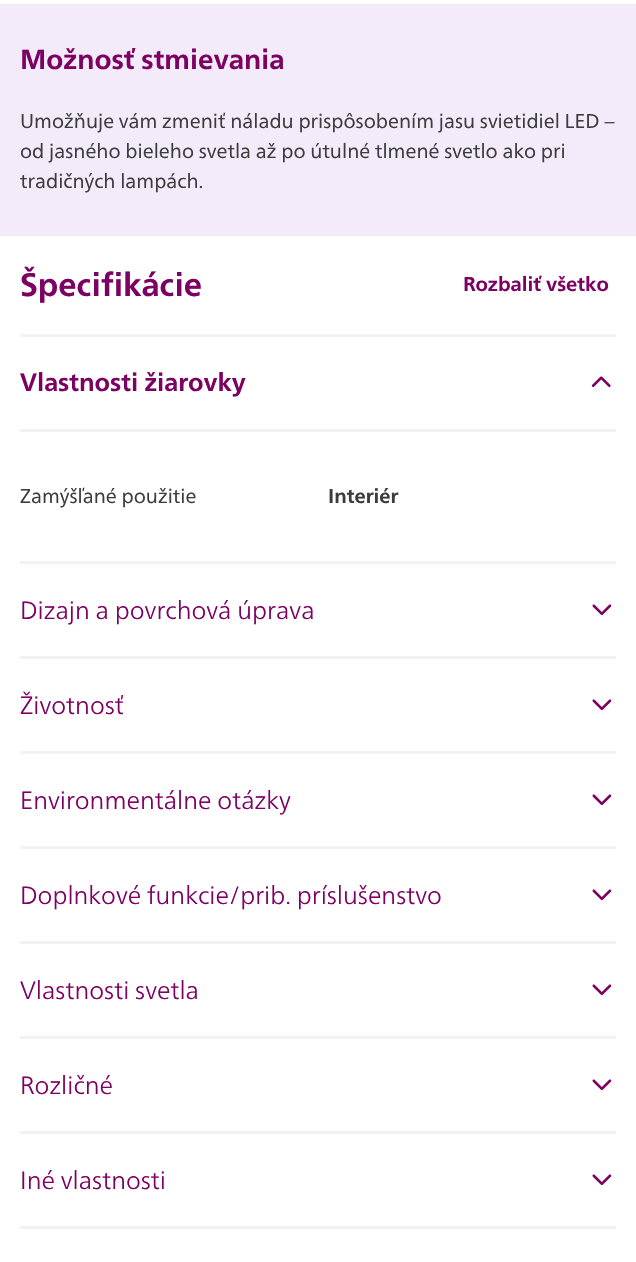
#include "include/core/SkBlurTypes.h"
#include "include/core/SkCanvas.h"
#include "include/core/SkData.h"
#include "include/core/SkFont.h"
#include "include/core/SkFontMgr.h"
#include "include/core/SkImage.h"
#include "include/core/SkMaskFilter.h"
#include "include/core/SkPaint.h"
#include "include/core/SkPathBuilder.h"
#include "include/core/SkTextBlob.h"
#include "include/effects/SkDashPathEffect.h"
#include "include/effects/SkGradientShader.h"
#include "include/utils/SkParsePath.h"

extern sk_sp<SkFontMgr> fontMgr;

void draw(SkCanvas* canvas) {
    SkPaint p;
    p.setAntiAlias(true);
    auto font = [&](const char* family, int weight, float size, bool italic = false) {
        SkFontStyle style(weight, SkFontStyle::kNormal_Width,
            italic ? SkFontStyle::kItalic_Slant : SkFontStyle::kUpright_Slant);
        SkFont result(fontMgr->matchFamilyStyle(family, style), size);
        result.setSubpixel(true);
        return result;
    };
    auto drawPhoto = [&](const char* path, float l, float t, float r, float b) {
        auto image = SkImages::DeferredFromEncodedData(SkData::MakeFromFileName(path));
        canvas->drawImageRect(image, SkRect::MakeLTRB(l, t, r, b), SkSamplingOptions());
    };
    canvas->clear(0xFFFFFFFF);
    p.setColor(0xFFF3EBFA);
    canvas->drawRect(SkRect::MakeLTRB(0, 4, 636, 236), p);
    auto font1 = font("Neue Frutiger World", 700, 27.5f);
    p.setColor(0xFF7D0063);
    canvas->drawString("Možnosť stmievania", 20, 69, font1, p);
    auto font2 = font("Neue Frutiger World", 400, 20);
    p.setColor(0xFF3C3C3C);
    {
        const struct { const char* s; float x, y; } items[] = {
            {"Umožňuje vám zmeniť náladu prispôsobením jasu svietidiel LED –", 20, 128},
            {"od jasného bieleho svetla až po útulné tlmené svetlo ako pri", 20, 158},
            {"tradičných lampách.", 20, 188},
        };
        for (auto [s, x, y] : items) {
            canvas->drawString(s, x, y, font2, p);
        }
    }
    auto font3 = font("Neue Frutiger World", 700, 32.5f);
    p.setColor(0xFF7D0063);
    canvas->drawString("Špecifikácie", 20, 296, font3, p);
    auto font4 = font("Neue Frutiger World", 700, 20);
    canvas->drawString("Rozbaliť všetko", 463, 291, font4, p);
    p.setColor(0xFFF2F2F2);
    canvas->drawRect(SkRect::MakeLTRB(20, 334, 616, 337), p);
    canvas->drawRect(SkRect::MakeLTRB(20, 429, 616, 432), p);
    auto font5 = font("Neue Frutiger World", 700, 25);
    p.setColor(0xFF7D0063);
    canvas->drawString("Vlastnosti žiarovky", 20, 391, font5, p);
    drawPhoto("media/1.png", 591, 376, 611, 387);
    p.setColor(0xFF3C3C3C);
    canvas->drawString("Zamýšľané použitie", 20, 503, font2, p);
    canvas->drawString("Interiér", 328, 503, font4, p);
    p.setColor(0xFFF2F2F2);
    canvas->drawRect(SkRect::MakeLTRB(20, 561, 616, 564), p);
    auto font6 = font("Neue Frutiger World", 300, 25);
    p.setColor(0xFF7D0063);
    canvas->drawString("Dizajn a povrchová úprava", 20, 619, font6, p);
    drawPhoto("media/2.png", 592, 604, 612, 615);
    p.setColor(0xFFF2F2F2);
    canvas->drawRect(SkRect::MakeLTRB(20, 656, 616, 659), p);
    p.setColor(0xFF7D0063);
    canvas->drawString("Životnosť", 20, 714, font6, p);
    drawPhoto("media/2.png", 592, 699, 612, 710);
    p.setColor(0xFFF2F2F2);
    canvas->drawRect(SkRect::MakeLTRB(20, 751, 616, 754), p);
    p.setColor(0xFF7D0063);
    canvas->drawString("Environmentálne otázky", 20, 809, font6, p);
    drawPhoto("media/2.png", 592, 794, 612, 805);
    p.setColor(0xFFF2F2F2);
    canvas->drawRect(SkRect::MakeLTRB(20, 846, 616, 849), p);
    p.setColor(0xFF7D0063);
    canvas->drawString("Doplnkové funkcie/prib. príslušenstvo", 20, 904, font6, p);
    drawPhoto("media/2.png", 592, 889, 612, 900);
    p.setColor(0xFFF2F2F2);
    canvas->drawRect(SkRect::MakeLTRB(20, 941, 616, 944), p);
    p.setColor(0xFF7D0063);
    canvas->drawString("Vlastnosti svetla", 20, 999, font6, p);
    drawPhoto("media/2.png", 592, 984, 612, 995);
    p.setColor(0xFFF2F2F2);
    canvas->drawRect(SkRect::MakeLTRB(20, 1036, 616, 1039), p);
    p.setColor(0xFF7D0063);
    canvas->drawString("Rozličné", 20, 1094, font6, p);
    drawPhoto("media/2.png", 592, 1079, 612, 1090);
    p.setColor(0xFFF2F2F2);
    canvas->drawRect(SkRect::MakeLTRB(20, 1131, 616, 1134), p);
    p.setColor(0xFF7D0063);
    canvas->drawString("Iné vlastnosti", 20, 1189, font6, p);
    drawPhoto("media/2.png", 592, 1174, 612, 1185);
    p.setColor(0xFFF2F2F2);
    canvas->drawRect(SkRect::MakeLTRB(20, 1226, 616, 1229), p);
}
